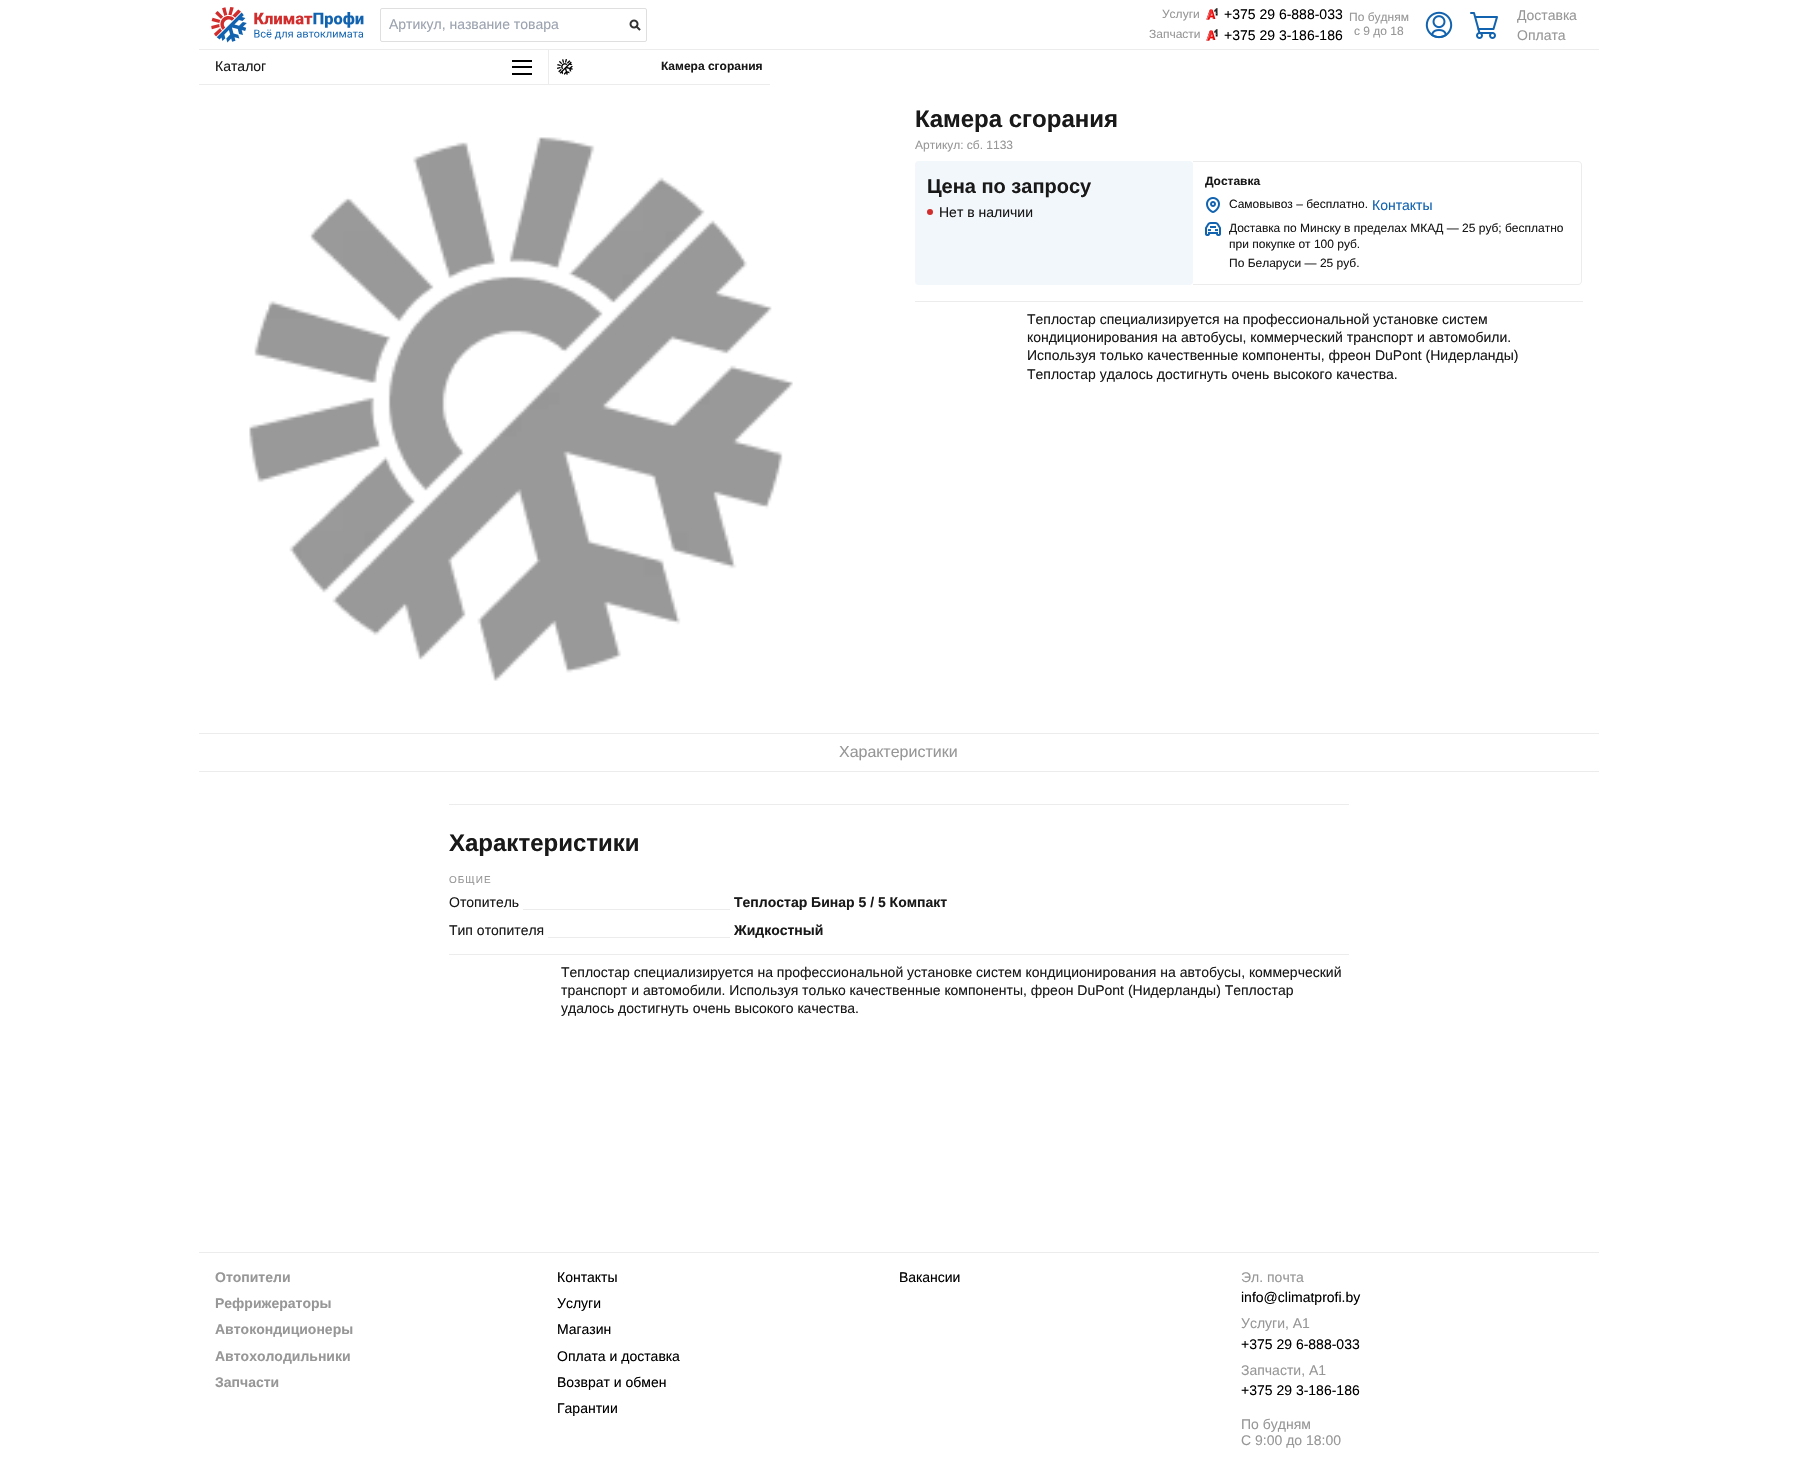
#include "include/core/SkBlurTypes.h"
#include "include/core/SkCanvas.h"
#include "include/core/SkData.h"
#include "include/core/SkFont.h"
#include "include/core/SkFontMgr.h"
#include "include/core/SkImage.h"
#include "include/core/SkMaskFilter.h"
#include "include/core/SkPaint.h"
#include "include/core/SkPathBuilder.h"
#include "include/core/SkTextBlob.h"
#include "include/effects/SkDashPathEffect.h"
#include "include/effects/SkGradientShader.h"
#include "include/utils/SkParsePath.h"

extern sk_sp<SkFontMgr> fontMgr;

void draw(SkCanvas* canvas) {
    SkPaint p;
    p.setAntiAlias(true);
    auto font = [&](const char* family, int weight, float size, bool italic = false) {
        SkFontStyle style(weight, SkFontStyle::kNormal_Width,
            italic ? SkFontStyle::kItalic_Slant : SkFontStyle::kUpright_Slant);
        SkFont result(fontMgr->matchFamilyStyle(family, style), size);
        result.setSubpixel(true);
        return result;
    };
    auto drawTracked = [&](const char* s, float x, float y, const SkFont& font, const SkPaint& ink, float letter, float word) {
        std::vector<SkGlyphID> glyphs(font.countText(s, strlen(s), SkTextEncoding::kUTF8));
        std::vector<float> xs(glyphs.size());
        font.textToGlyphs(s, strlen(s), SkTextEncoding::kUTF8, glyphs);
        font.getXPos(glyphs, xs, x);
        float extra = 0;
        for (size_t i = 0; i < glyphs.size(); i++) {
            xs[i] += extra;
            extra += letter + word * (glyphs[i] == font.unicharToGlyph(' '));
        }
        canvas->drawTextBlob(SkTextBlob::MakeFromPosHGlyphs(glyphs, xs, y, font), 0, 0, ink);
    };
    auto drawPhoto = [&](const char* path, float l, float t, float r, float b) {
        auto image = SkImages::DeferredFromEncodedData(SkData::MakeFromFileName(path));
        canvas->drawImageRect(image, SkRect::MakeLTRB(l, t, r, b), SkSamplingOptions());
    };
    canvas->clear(0xFFFFFFFF);
    p.setColor(0xFFECECEC);
    canvas->drawRect(SkRect::MakeLTRB(199, 49, 1599, 50), p);
    drawPhoto("media/1.png", 211, 7, 364, 43);
    p.setStyle(SkPaint::kStroke_Style);
    p.setStrokeWidth(1);
    p.setColor(0xFFDFDFDF);
    canvas->drawRoundRect(SkRect::MakeLTRB(380.5f, 8.5f, 646.5f, 41.5f), 1.5f, 1.5f, p);
    auto font1 = font("Liberation Sans", 400, 14);
    p.setStyle(SkPaint::kFill_Style);
    p.setColor(0xFF9CA3AF);
    canvas->drawString("Артикул, название товара", 389, 29, font1, p);
    drawPhoto("media/2.png", 629, 19, 641, 31);
    auto font2 = font("Liberation Sans", 400, 12);
    p.setColor(0xFF979797);
    canvas->drawString("Услуги", 1162, 18, font2, p);
    drawPhoto("media/3.png", 1206, 8, 1218, 20);
    p.setColor(0xFF000000);
    canvas->drawString("+375 29 6-888-033", 1224, 19, font1, p);
    p.setColor(0xFF979797);
    canvas->drawString("Запчасти", 1149, 38, font2, p);
    drawPhoto("media/3.png", 1206, 29, 1218, 41);
    p.setColor(0xFF000000);
    canvas->drawString("+375 29 3-186-186", 1224, 40, font1, p);
    p.setColor(0xFF979797);
    canvas->drawString("По будням", 1349, 21, font2, p);
    canvas->drawString("с 9 до 18", 1354, 35, font2, p);
    drawPhoto("media/4.png", 1425, 11, 1453, 39);
    drawPhoto("media/5.png", 1470, 12, 1498, 39);
    canvas->drawString("Доставка", 1517, 20, font1, p);
    canvas->drawString("Оплата", 1517, 40, font1, p);
    p.setColor(0xFFECECEC);
    canvas->drawRect(SkRect::MakeLTRB(548, 50, 549, 85), p);
    canvas->drawRect(SkRect::MakeLTRB(199, 84, 770, 85), p);
    p.setColor(0xFF191919);
    canvas->drawString("Каталог", 215, 71, font1, p);
    {
        const struct { float l, t, r, b; SkColor color; } items[] = {
            {512, 73, 532, 75, 0xFF000000},
            {512, 60, 532, 62, 0xFF000000},
            {512, 66, 532, 68, 0xFF000000},
        };
        for (auto [l, t, r, b, color] : items) {
            p.setColor(color);
            canvas->drawRect(SkRect::MakeLTRB(l, t, r, b), p);
        }
    }
    drawPhoto("media/6.png", 557, 59, 573, 75);
    auto font3 = font("Liberation Sans", 700, 12);
    p.setColor(0xFF191919);
    canvas->drawString("Камера сгорания", 661, 70, font3, p);
    p.setColor(0xFFECECEC);
    canvas->drawRect(SkRect::MakeLTRB(199, 733, 1599, 734), p);
    drawPhoto("media/7.png", 249, 137, 793, 681);
    auto font4 = font("Liberation Sans", 700, 24);
    p.setColor(0xFF191919);
    canvas->drawString("Камера сгорания", 915, 127, font4, p);
    p.setColor(0xFF979797);
    canvas->drawString("Артикул: сб. 1133", 915, 149, font2, p);
    p.setColor(0xFFF2F7FB);
    canvas->drawRoundRect(SkRect::MakeLTRB(915, 161, 1193, 285), 4, 4, p);
    auto font5 = font("Liberation Sans", 700, 20);
    p.setColor(0xFF191919);
    canvas->drawString("Цена по запросу", 927, 193, font5, p);
    p.setColor(0xFFD12D2C);
    canvas->drawCircle(930, 212, 3, p);
    p.setColor(0xFF191919);
    canvas->drawString("Нет в наличии", 939, 217, font1, p);
    p.setColor(0xFFECECEC);
    canvas->drawPath(SkPathBuilder(SkPathFillType::kEvenOdd).moveTo(1193, 161).lineTo(1578, 161).cubicTo(1580, 161, 1582, 163, 1582, 165).lineTo(1582, 281).cubicTo(1582, 283, 1580, 285, 1578, 285).lineTo(1193, 285).close().moveTo(1193, 162).lineTo(1578, 162).cubicTo(1580, 162, 1581, 163, 1581, 165).lineTo(1581, 281).cubicTo(1581, 283, 1580, 284, 1578, 284).lineTo(1193, 284).close().detach(), p);
    p.setColor(0xFF191919);
    canvas->drawString("Доставка", 1205, 185, font3, p);
    drawPhoto("media/8.png", 1206, 197, 1220, 213);
    canvas->drawString("Самовывоз – бесплатно.", 1229, 208, font2, p);
    p.setColor(0xFF1263AF);
    canvas->drawString("Контакты", 1372, 210, font1, p);
    drawPhoto("media/9.png", 1205, 222, 1221, 236);
    p.setColor(0xFF191919);
    {
        const struct { const char* s; float x, y; } items[] = {
            {"Доставка по Минску в пределах МКАД — 25 руб; бесплатно", 1229, 232},
            {"при покупке от 100 руб.", 1229, 248},
            {"По Беларуси — 25 руб.", 1229, 267},
        };
        for (auto [s, x, y] : items) {
            canvas->drawString(s, x, y, font2, p);
        }
    }
    p.setColor(0xFFECECEC);
    canvas->drawRect(SkRect::MakeLTRB(915, 301, 1583, 302), p);
    p.setColor(0xFF191919);
    {
        const struct { const char* s; float x, y; } items[] = {
            {"Теплостар специализируется на профессиональной установке систем", 1027, 324},
            {"кондиционирования на автобусы, коммерческий транспорт и автомобили.", 1027, 342},
            {"Используя только качественные компоненты, фреон DuPont (Нидерланды)", 1027, 360},
            {"Теплостар удалось достигнуть очень высокого качества.", 1027, 379},
        };
        for (auto [s, x, y] : items) {
            canvas->drawString(s, x, y, font1, p);
        }
    }
    p.setColor(0xFFECECEC);
    canvas->drawRect(SkRect::MakeLTRB(199, 771, 1599, 772), p);
    auto font6 = font("Liberation Sans", 400, 16);
    p.setColor(0xFF979797);
    canvas->drawString("Характеристики", 839, 757, font6, p);
    p.setColor(0xFFECECEC);
    canvas->drawRect(SkRect::MakeLTRB(449, 804, 1349, 805), p);
    p.setColor(0xFF191919);
    canvas->drawString("Характеристики", 449, 851, font4, p);
    auto font7 = font("Liberation Sans", 400, 10);
    p.setColor(0xFF979797);
    drawTracked("ОБЩИЕ", 449, 883, font7, p, 1, 0);
    p.setColor(0xFF191919);
    canvas->drawString("Отопитель", 449, 907, font1, p);
    p.setColor(0xFFECECEC);
    canvas->drawRect(SkRect::MakeLTRB(523, 909, 730, 910), p);
    auto font8 = font("Liberation Sans", 700, 14);
    p.setColor(0xFF191919);
    canvas->drawString("Теплостар Бинар 5 / 5 Компакт", 734, 907, font8, p);
    canvas->drawString("Тип отопителя", 449, 935, font1, p);
    p.setColor(0xFFECECEC);
    canvas->drawRect(SkRect::MakeLTRB(548, 937, 730, 938), p);
    p.setColor(0xFF191919);
    canvas->drawString("Жидкостный", 734, 935, font8, p);
    p.setColor(0xFFECECEC);
    canvas->drawRect(SkRect::MakeLTRB(449, 954, 1349, 955), p);
    p.setColor(0xFF191919);
    {
        const struct { const char* s; float x, y; } items[] = {
            {"Теплостар специализируется на профессиональной установке систем кондиционирования на автобусы, коммерческий", 561, 977},
            {"транспорт и автомобили. Используя только качественные компоненты, фреон DuPont (Нидерланды) Теплостар", 561, 995},
            {"удалось достигнуть очень высокого качества.", 561, 1013},
        };
        for (auto [s, x, y] : items) {
            canvas->drawString(s, x, y, font1, p);
        }
    }
    p.setColor(0xFFECECEC);
    canvas->drawRect(SkRect::MakeLTRB(199, 1252, 1599, 1253), p);
    p.setColor(0xFF979797);
    {
        const struct { const char* s; float x, y; } items[] = {
            {"Отопители", 215, 1282},
            {"Рефрижераторы", 215, 1308},
            {"Автокондиционеры", 215, 1334},
            {"Автохолодильники", 215, 1361},
            {"Запчасти", 215, 1387},
        };
        for (auto [s, x, y] : items) {
            canvas->drawString(s, x, y, font8, p);
        }
    }
    p.setColor(0xFF000000);
    {
        const struct { const char* s; float x, y; } items[] = {
            {"Контакты", 557, 1282},
            {"Услуги", 557, 1308},
            {"Магазин", 557, 1334},
            {"Оплата и доставка", 557, 1361},
            {"Возврат и обмен", 557, 1387},
            {"Гарантии", 557, 1413},
            {"Вакансии", 899, 1282},
        };
        for (auto [s, x, y] : items) {
            canvas->drawString(s, x, y, font1, p);
        }
    }
    p.setColor(0xFF979797);
    canvas->drawString("Эл. почта", 1241, 1282, font1, p);
    p.setColor(0xFF000000);
    canvas->drawString("info@climatprofi.by", 1241, 1302, font1, p);
    p.setColor(0xFF979797);
    canvas->drawString("Услуги, А1", 1241, 1328, font1, p);
    p.setColor(0xFF000000);
    canvas->drawString("+375 29 6-888-033", 1241, 1349, font1, p);
    p.setColor(0xFF979797);
    canvas->drawString("Запчасти, А1", 1241, 1375, font1, p);
    p.setColor(0xFF000000);
    canvas->drawString("+375 29 3-186-186", 1241, 1395, font1, p);
    p.setColor(0xFF979797);
    canvas->drawString("По будням", 1241, 1429, font1, p);
    canvas->drawString("С 9:00 до 18:00", 1241, 1445, font1, p);
}
